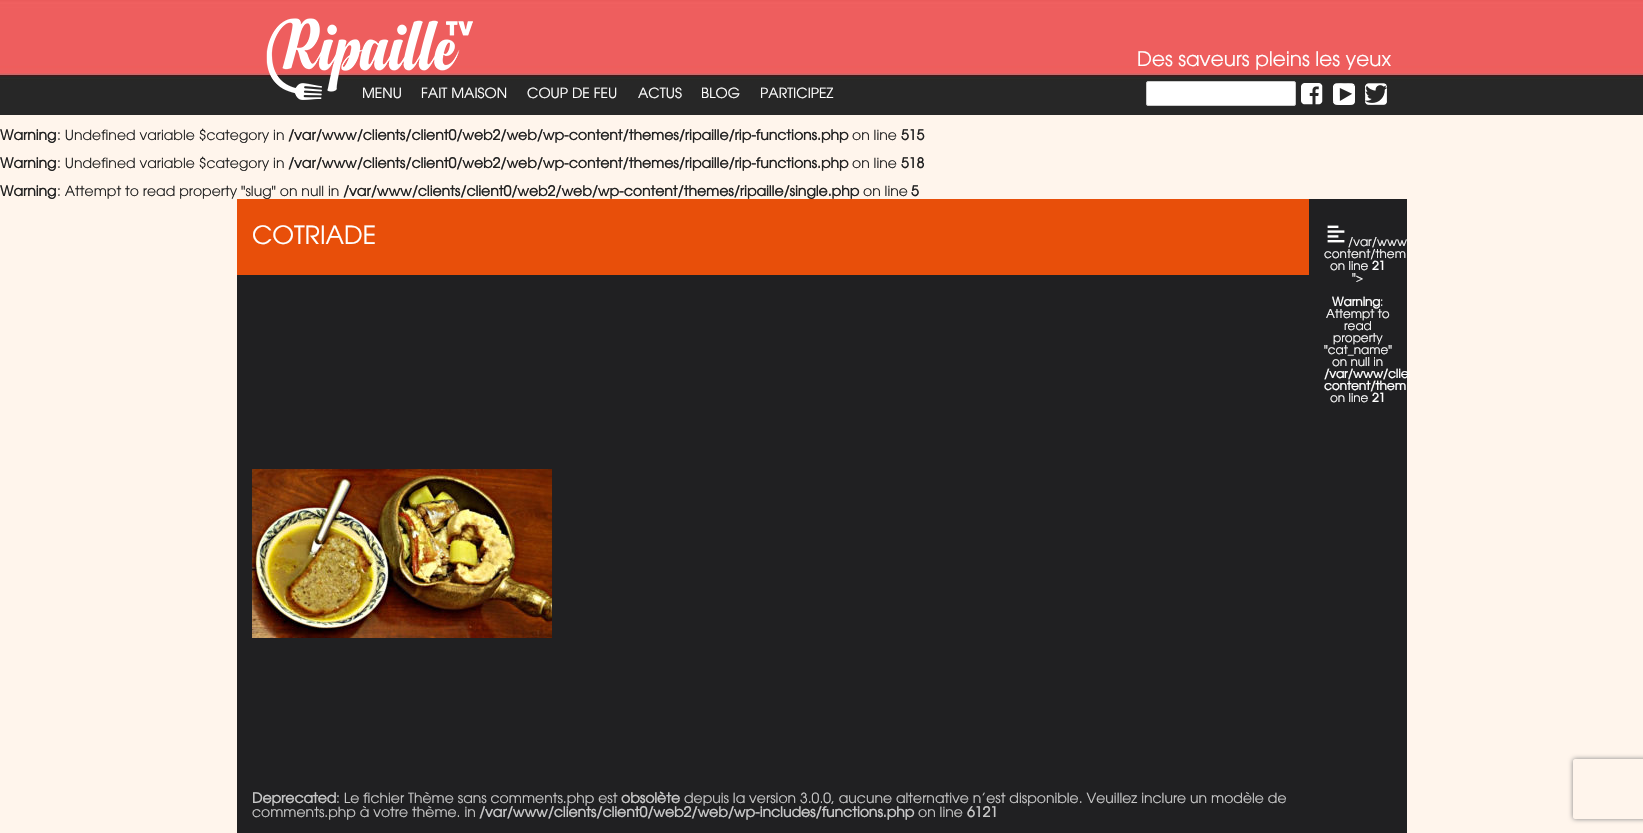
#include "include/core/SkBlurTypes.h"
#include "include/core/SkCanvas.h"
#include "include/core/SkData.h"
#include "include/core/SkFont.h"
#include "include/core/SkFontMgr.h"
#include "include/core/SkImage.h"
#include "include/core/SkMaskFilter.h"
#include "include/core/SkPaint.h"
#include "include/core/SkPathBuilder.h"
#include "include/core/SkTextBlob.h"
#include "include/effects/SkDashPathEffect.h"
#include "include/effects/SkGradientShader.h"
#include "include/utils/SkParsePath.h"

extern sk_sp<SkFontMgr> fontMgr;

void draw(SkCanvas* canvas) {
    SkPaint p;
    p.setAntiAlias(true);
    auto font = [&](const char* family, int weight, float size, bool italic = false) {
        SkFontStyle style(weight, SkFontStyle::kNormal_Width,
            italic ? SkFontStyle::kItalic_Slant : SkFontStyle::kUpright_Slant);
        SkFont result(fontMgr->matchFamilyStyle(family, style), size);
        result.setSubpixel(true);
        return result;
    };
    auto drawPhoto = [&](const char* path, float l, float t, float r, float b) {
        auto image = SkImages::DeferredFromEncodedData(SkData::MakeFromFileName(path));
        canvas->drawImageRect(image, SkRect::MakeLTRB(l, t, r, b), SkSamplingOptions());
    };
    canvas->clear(0xFFFFF5EC);
    drawPhoto("media/1.png", 0, 0, 1643, 115);
    drawPhoto("media/2.png", 266, 18, 473, 100);
    auto font1 = font("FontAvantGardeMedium", 400, 20);
    p.setColor(0xFFFFFFFF);
    canvas->drawString("Des saveurs pleins les yeux", 1137, 66, font1, p);
    auto font2 = font("FontAvantGardeMedium", 400, 14);
    {
        const struct { const char* s; float x, y; } items[] = {
            {"MENU", 362, 98},
            {"FAIT MAISON", 421, 98},
            {"COUP DE FEU", 527, 98},
            {"ACTUS", 638, 98},
            {"BLOG", 701, 98},
            {"PARTICIPEZ", 760, 98},
        };
        for (auto [s, x, y] : items) {
            canvas->drawString(s, x, y, font2, p);
        }
    }
    canvas->drawRoundRect(SkRect::MakeLTRB(1146.5f, 81.5f, 1295.5f, 105.5f), 1.5f, 1.5f, p);
    p.setStyle(SkPaint::kStroke_Style);
    p.setStrokeWidth(1);
    p.setColor(0xFFCCCCCC);
    canvas->drawRoundRect(SkRect::MakeLTRB(1146.5f, 81.5f, 1295.5f, 105.5f), 1.5f, 1.5f, p);
    drawPhoto("media/3.png", 1301, 83, 1323, 105);
    drawPhoto("media/4.png", 1333, 83, 1355, 105);
    drawPhoto("media/5.png", 1365, 83, 1387, 105);
    auto font3 = font("FontAvantGardeMedium", 700, 14);
    p.setStyle(SkPaint::kFill_Style);
    p.setColor(0xFF222222);
    canvas->drawString("Warning", 0, 140, font3, p);
    canvas->drawString(": Undefined variable $category in", 57, 140, font2, p);
    canvas->drawString("/var/www/clients/client0/web2/web/wp-content/themes/ripaille/rip-functions.php", 288, 140, font3, p);
    canvas->drawString("on line", 852, 140, font2, p);
    canvas->drawString("515", 901, 140, font3, p);
    canvas->drawString("Warning", 0, 168, font3, p);
    canvas->drawString(": Undefined variable $category in", 57, 168, font2, p);
    canvas->drawString("/var/www/clients/client0/web2/web/wp-content/themes/ripaille/rip-functions.php", 288, 168, font3, p);
    canvas->drawString("on line", 852, 168, font2, p);
    canvas->drawString("518", 901, 168, font3, p);
    canvas->drawString("Warning", 0, 196, font3, p);
    canvas->drawString(": Attempt to read property \"slug\" on null in", 57, 196, font2, p);
    canvas->drawString("/var/www/clients/client0/web2/web/wp-content/themes/ripaille/single.php", 343, 196, font3, p);
    canvas->drawString("on line", 863, 196, font2, p);
    canvas->drawString("5", 911, 196, font3, p);
    p.setColor(0xFF202022);
    canvas->drawRect(SkRect::MakeLTRB(237, 199, 1407, 833), p);
    p.setColor(0xFFE84F0A);
    canvas->drawRect(SkRect::MakeLTRB(237, 199, 1309, 275), p);
    auto font4 = font("FontAvantGardeMedium", 400, 25);
    p.setColor(0xFFFFFFFF);
    canvas->drawString("COTRIADE", 252, 244, font4, p);
    drawPhoto("media/6.png", 1327, 225, 1345, 243);
    auto font5 = font("FontAvantGardeMedium", 400, 12);
    {
        const struct { const char* s; float x, y; } items[] = {
            {"/var/www", 1348, 246},
            {"content/them", 1324, 258},
            {"on line", 1330, 270},
        };
        for (auto [s, x, y] : items) {
            canvas->drawString(s, x, y, font5, p);
        }
    }
    auto font6 = font("FontAvantGardeMedium", 700, 12);
    canvas->drawString("21", 1372, 270, font6, p);
    canvas->drawString("\">", 1352, 282, font5, p);
    canvas->drawString("Warning", 1332, 306, font6, p);
    {
        const struct { const char* s; float x, y; } items[] = {
            {":", 1380, 306},
            {"Attempt to", 1326, 318},
            {"read", 1344, 330},
            {"property", 1333, 342},
            {"\"cat_name\"", 1324, 354},
            {"on null in", 1332, 366},
        };
        for (auto [s, x, y] : items) {
            canvas->drawString(s, x, y, font5, p);
        }
    }
    canvas->drawString("/var/www/clie", 1324, 378, font6, p);
    canvas->drawString("content/them", 1324, 390, font6, p);
    canvas->drawString("on line", 1330, 402, font5, p);
    canvas->drawString("21", 1372, 402, font6, p);
    drawPhoto("media/7.png", 252, 469, 552, 638);
    p.setColor(0xFFC8C8C8);
    canvas->drawString("Deprecated", 252, 803, font3, p);
    canvas->drawString(": Le fichier Thème sans comments.php est", 336, 803, font2, p);
    canvas->drawString("obsolète", 621, 803, font3, p);
    canvas->drawString("depuis la version 3.0.0, aucune alternative n’est disponible. Veuillez inclure un modèle de", 684, 803, font2, p);
    canvas->drawString("comments.php à votre thème. in", 252, 817, font2, p);
    canvas->drawString("/var/www/clients/client0/web2/web/wp-includes/functions.php", 479, 817, font3, p);
    canvas->drawString("on line", 918, 817, font2, p);
    canvas->drawString("6121", 967, 817, font3, p);
    canvas->save();
    canvas->clipPath(SkPathBuilder(SkPathFillType::kEvenOdd).moveTo(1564, 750).lineTo(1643, 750).lineTo(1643, 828).lineTo(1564, 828).close().moveTo(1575, 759).lineTo(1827, 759).cubicTo(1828, 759, 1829, 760, 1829, 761).lineTo(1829, 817).cubicTo(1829, 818, 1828, 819, 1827, 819).lineTo(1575, 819).cubicTo(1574, 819, 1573, 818, 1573, 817).lineTo(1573, 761).cubicTo(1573, 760, 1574, 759, 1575, 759).close().detach(), true);
    p.setColor(0xFF808080);
    p.setMaskFilter(SkMaskFilter::MakeBlur(kNormal_SkBlurStyle, 2.5f));
    canvas->drawRoundRect(SkRect::MakeLTRB(1573, 759, 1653, 819), 2, 2, p);
    p.setMaskFilter(nullptr);
    canvas->restore();
}
